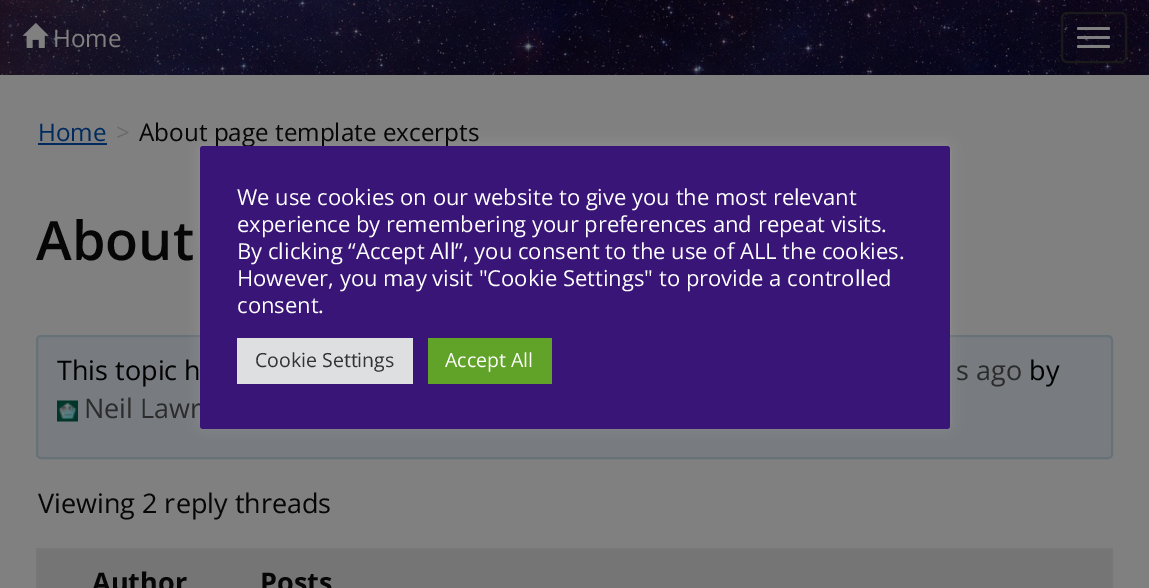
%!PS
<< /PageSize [1149 588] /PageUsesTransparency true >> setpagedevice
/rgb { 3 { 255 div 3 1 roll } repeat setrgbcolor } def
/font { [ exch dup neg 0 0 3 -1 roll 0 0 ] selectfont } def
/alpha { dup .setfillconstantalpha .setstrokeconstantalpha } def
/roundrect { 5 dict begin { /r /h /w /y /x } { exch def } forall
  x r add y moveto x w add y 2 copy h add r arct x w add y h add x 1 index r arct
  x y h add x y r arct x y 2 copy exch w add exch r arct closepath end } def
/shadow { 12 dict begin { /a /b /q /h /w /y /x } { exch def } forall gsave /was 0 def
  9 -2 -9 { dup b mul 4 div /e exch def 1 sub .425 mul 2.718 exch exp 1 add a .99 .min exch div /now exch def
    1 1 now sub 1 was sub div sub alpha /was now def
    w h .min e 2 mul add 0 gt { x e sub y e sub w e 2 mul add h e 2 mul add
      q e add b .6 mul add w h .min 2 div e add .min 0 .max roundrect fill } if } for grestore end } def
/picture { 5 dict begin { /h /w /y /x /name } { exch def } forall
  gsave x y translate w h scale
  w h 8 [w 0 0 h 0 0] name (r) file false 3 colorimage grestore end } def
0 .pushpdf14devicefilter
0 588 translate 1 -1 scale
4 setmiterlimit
255 255 255 rgb
0 0 1149 588 rectfill
(img/1.rgb) 0 0 1149 75 picture
(img/2.rgb) 22 23 27 25 picture
26 26 26 rgb
2 setlinewidth
1062 13 64 49 5 roundrect stroke
128 128 128 rgb
1077 27 33 3 1.5 roundrect fill
1077 36 33 3 1.5 roundrect fill
1077 45 33 3 1.5 roundrect fill
0 75 1149 513 rectfill
0 42 93 rgb
38 143 69 2 rectfill
120 124 128 rgb
37 336 1075 122 4 roundrect gsave fill grestore
103 113 120 rgb
stroke
(img/3.rgb) 57 400 21 22 picture
119 119 119 rgb
37 549 1075 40 rectstroke
117 117 117 rgb
38 551 1073 37 rectfill
119 119 119 rgb
38 550 1074 1 rectfill
172 171 171 rgb
200 144 750 284 3 7.5 0.3 shadow
/OpenSans-Regular 24.25 font
128 128 128 rgb
53 47 moveto (Home) show
0 42 93 rgb
38 141 moveto (Home) show
106 106 106 rgb
116 141 moveto (>) show
6 6 6 rgb
139 141 moveto (About page template excerpts) show
/OpenSans-SemiBold 54 font
36 260 moveto (About) show
/OpenSans-Regular 27 font
0 0 0 rgb
57 380 moveto (This topic h) show
43 43 43 rgb
956 380 moveto (s ago) show
0 0 0 rgb
1029 380 moveto (by) show
43 43 43 rgb
84 418 moveto (Neil Lawr) show
6 6 6 rgb
38 513 moveto (Viewing 2 reply threads) show
/OpenSans-Bold 27 font
92 592 moveto (Author) show
260 592 moveto (Posts) show
57 21 119 rgb
200 146 750 283 3 roundrect fill
/OpenSans-Regular 22 font
255 255 255 rgb
[
  [(We use cookies on our website to give you the most relevant) 237 205]
  [(experience by remembering your preferences and repeat visits.) 237 232]
  [(By clicking “Accept All”, you consent to the use of ALL the cookies.) 237 259]
  [(However, you may visit "Cookie Settings" to provide a controlled) 237 286]
  [(consent.) 237 313]
] { aload pop moveto show } forall
222 223 224 rgb
237 338 176 46 rectfill
/OpenSans-Regular 19.5 font
51 51 51 rgb
255 367 moveto (Cookie Settings) show
97 162 41 rgb
428 338 124 46 rectfill
255 255 255 rgb
445 367 moveto (Accept All) show
.poppdf14devicefilter showpage
